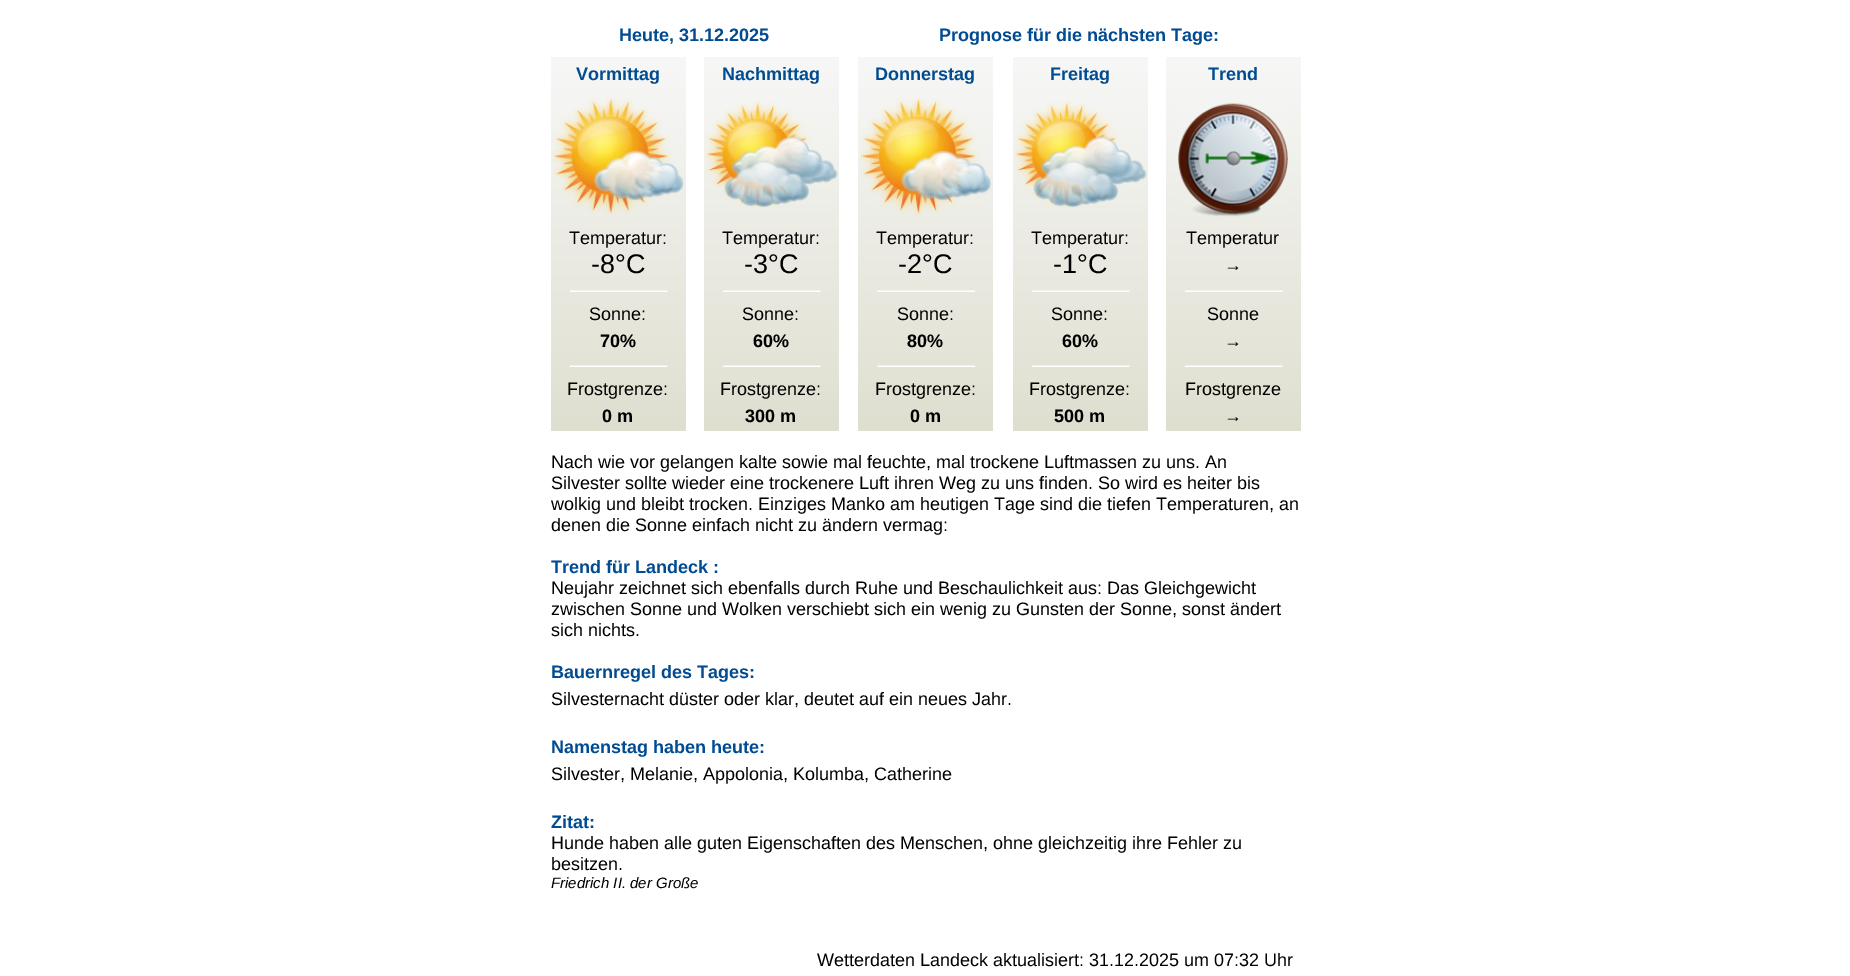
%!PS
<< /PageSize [1850 976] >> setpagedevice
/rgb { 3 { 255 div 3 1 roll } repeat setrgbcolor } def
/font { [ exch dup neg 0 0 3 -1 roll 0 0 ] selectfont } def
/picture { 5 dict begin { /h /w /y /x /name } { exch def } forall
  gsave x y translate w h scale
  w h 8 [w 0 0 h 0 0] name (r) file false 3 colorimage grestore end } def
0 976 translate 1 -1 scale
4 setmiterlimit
255 255 255 rgb
0 0 1850 976 rectfill
gsave 551 57 moveto 686 57 lineto 686 431 lineto 551 431 lineto closepath clip newpath
<< /ShadingType 2 /ColorSpace /DeviceRGB /Coords [618 57 618 431] /Extend [true true] /Function << /FunctionType 2 /Domain [0 1] /C0 [0.969 0.969 0.969] /C1 [0.875 0.875 0.816] /N 1 >> >> shfill grestore
(img/1.rgb) 551 97 133 119 picture
(img/2.rgb) 570 290 98 2 picture
(img/3.rgb) 570 365 98 2 picture
gsave 704 57 moveto 839 57 lineto 839 431 lineto 704 431 lineto closepath clip newpath
<< /ShadingType 2 /ColorSpace /DeviceRGB /Coords [771 57 771 431] /Extend [true true] /Function << /FunctionType 2 /Domain [0 1] /C0 [0.969 0.969 0.969] /C1 [0.875 0.875 0.816] /N 1 >> >> shfill grestore
(img/4.rgb) 704 100 134 108 picture
(img/2.rgb) 723 290 98 2 picture
(img/3.rgb) 723 365 98 2 picture
gsave 858 57 moveto 993 57 lineto 993 431 lineto 858 431 lineto closepath clip newpath
<< /ShadingType 2 /ColorSpace /DeviceRGB /Coords [926 57 926 431] /Extend [true true] /Function << /FunctionType 2 /Domain [0 1] /C0 [0.969 0.969 0.969] /C1 [0.875 0.875 0.816] /N 1 >> >> shfill grestore
(img/5.rgb) 859 97 132 119 picture
(img/6.rgb) 877 290 98 2 picture
(img/7.rgb) 877 365 98 2 picture
gsave 1013 57 moveto 1148 57 lineto 1148 431 lineto 1013 431 lineto closepath clip newpath
<< /ShadingType 2 /ColorSpace /DeviceRGB /Coords [1080 57 1080 431] /Extend [true true] /Function << /FunctionType 2 /Domain [0 1] /C0 [0.969 0.969 0.969] /C1 [0.875 0.875 0.816] /N 1 >> >> shfill grestore
(img/4.rgb) 1013 100 134 108 picture
(img/2.rgb) 1032 290 98 2 picture
(img/3.rgb) 1032 365 98 2 picture
gsave 1166 57 moveto 1301 57 lineto 1301 431 lineto 1166 431 lineto closepath clip newpath
<< /ShadingType 2 /ColorSpace /DeviceRGB /Coords [1233 57 1233 431] /Extend [true true] /Function << /FunctionType 2 /Domain [0 1] /C0 [0.969 0.969 0.969] /C1 [0.875 0.875 0.816] /N 1 >> >> shfill grestore
(img/8.rgb) 1178 103 110 114 picture
(img/2.rgb) 1185 290 98 2 picture
(img/3.rgb) 1185 365 98 2 picture
/LiberationSans-Bold 18 font
0 75 145 rgb
[
  [(Heute, 31.12.2025) 619 41]
  [(Prognose für die nächsten Tage:) 939 41]
  [(Vormittag) 576 80]
] { aload pop moveto show } forall
/LiberationSans-Regular 18 font
0 0 0 rgb
569 244 moveto (Temperatur:) show
/LiberationSans-Regular 27 font
591 273 moveto (-8°C) show
/LiberationSans-Regular 18 font
589 320 moveto (Sonne:) show
/LiberationSans-Bold 18 font
600 347 moveto (70%) show
/LiberationSans-Regular 18 font
567 395 moveto (Frostgrenze:) show
/LiberationSans-Bold 18 font
602 422 moveto (0 m) show
0 75 145 rgb
722 80 moveto (Nachmittag) show
/LiberationSans-Regular 18 font
0 0 0 rgb
722 244 moveto (Temperatur:) show
/LiberationSans-Regular 27 font
744 273 moveto (-3°C) show
/LiberationSans-Regular 18 font
742 320 moveto (Sonne:) show
/LiberationSans-Bold 18 font
753 347 moveto (60%) show
/LiberationSans-Regular 18 font
720 395 moveto (Frostgrenze:) show
/LiberationSans-Bold 18 font
745 422 moveto (300 m) show
0 75 145 rgb
875 80 moveto (Donnerstag) show
/LiberationSans-Regular 18 font
0 0 0 rgb
876 244 moveto (Temperatur:) show
/LiberationSans-Regular 27 font
898 273 moveto (-2°C) show
/LiberationSans-Regular 18 font
897 320 moveto (Sonne:) show
/LiberationSans-Bold 18 font
907 347 moveto (80%) show
/LiberationSans-Regular 18 font
875 395 moveto (Frostgrenze:) show
/LiberationSans-Bold 18 font
910 422 moveto (0 m) show
0 75 145 rgb
1050 80 moveto (Freitag) show
/LiberationSans-Regular 18 font
0 0 0 rgb
1031 244 moveto (Temperatur:) show
/LiberationSans-Regular 27 font
1053 273 moveto (-1°C) show
/LiberationSans-Regular 18 font
1051 320 moveto (Sonne:) show
/LiberationSans-Bold 18 font
1062 347 moveto (60%) show
/LiberationSans-Regular 18 font
1029 395 moveto (Frostgrenze:) show
/LiberationSans-Bold 18 font
1054 422 moveto (500 m) show
0 75 145 rgb
1208 80 moveto (Trend) show
/LiberationSans-Regular 18 font
0 0 0 rgb
1186 244 moveto (Temperatur) show
/LiberationSans-Bold 18 font
1224 271 moveto (→) show
/LiberationSans-Regular 18 font
1207 320 moveto (Sonne) show
/LiberationSans-Bold 18 font
1224 347 moveto (→) show
/LiberationSans-Regular 18 font
1185 395 moveto (Frostgrenze) show
/LiberationSans-Bold 18 font
1224 422 moveto (→) show
/LiberationSans-Regular 18 font
[
  [(Nach wie vor gelangen kalte sowie mal feuchte, mal trockene Luftmassen zu uns. An) 551 468]
  [(Silvester sollte wieder eine trockenere Luft ihren Weg zu uns finden. So wird es heiter bis) 551 489]
  [(wolkig und bleibt trocken. Einziges Manko am heutigen Tage sind die tiefen Temperaturen, an) 551 510]
  [(denen die Sonne einfach nicht zu ändern vermag:) 551 531]
] { aload pop moveto show } forall
/LiberationSans-Bold 18 font
0 75 145 rgb
551 573 moveto (Trend für Landeck :) show
/LiberationSans-Regular 18 font
0 0 0 rgb
[
  [(Neujahr zeichnet sich ebenfalls durch Ruhe und Beschaulichkeit aus: Das Gleichgewicht) 551 594]
  [(zwischen Sonne und Wolken verschiebt sich ein wenig zu Gunsten der Sonne, sonst ändert) 551 615]
  [(sich nichts.) 551 636]
] { aload pop moveto show } forall
/LiberationSans-Bold 18 font
0 75 145 rgb
551 678 moveto (Bauernregel des Tages:) show
/LiberationSans-Regular 18 font
0 0 0 rgb
551 705 moveto (Silvesternacht düster oder klar, deutet auf ein neues Jahr.) show
/LiberationSans-Bold 18 font
0 75 145 rgb
551 753 moveto (Namenstag haben heute:) show
/LiberationSans-Regular 18 font
0 0 0 rgb
551 780 moveto (Silvester, Melanie, Appolonia, Kolumba, Catherine) show
/LiberationSans-Bold 18 font
0 75 145 rgb
551 828 moveto (Zitat:) show
/LiberationSans-Regular 18 font
0 0 0 rgb
551 849 moveto (Hunde haben alle guten Eigenschaften des Menschen, ohne gleichzeitig ihre Fehler zu) show
551 870 moveto (besitzen.) show
/LiberationSans-Italic 15 font
551 888 moveto (Friedrich II. der Große) show
/LiberationSans-Regular 18 font
817 966 moveto (Wetterdaten Landeck aktualisiert: 31.12.2025 um 07:32 Uhr) show
showpage
